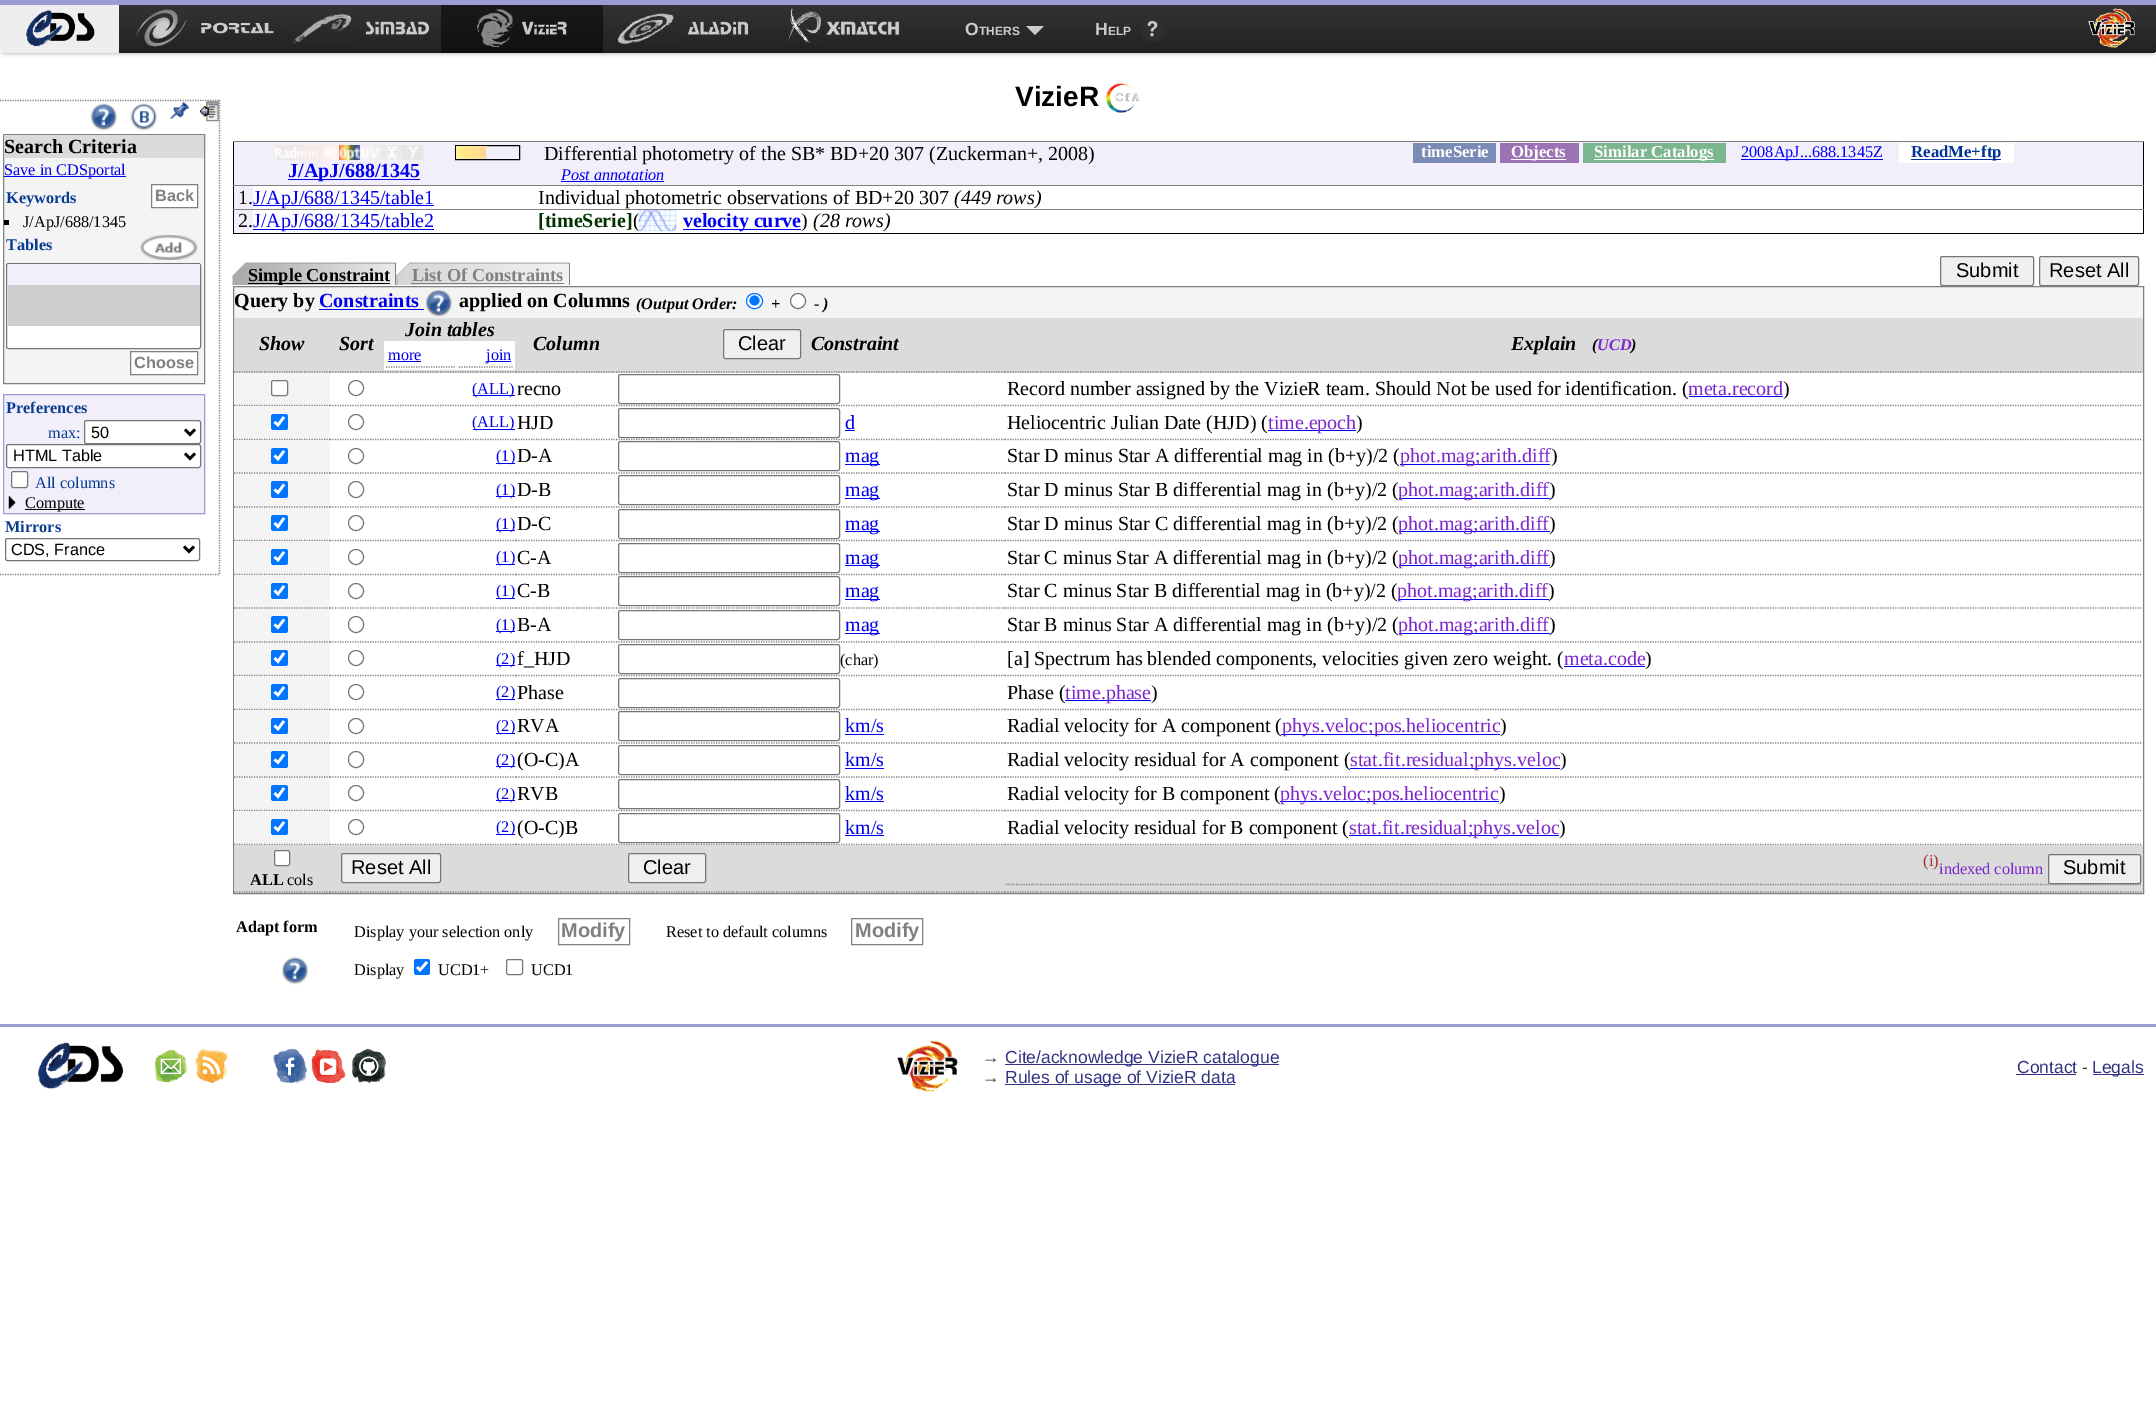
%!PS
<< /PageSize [2156 1416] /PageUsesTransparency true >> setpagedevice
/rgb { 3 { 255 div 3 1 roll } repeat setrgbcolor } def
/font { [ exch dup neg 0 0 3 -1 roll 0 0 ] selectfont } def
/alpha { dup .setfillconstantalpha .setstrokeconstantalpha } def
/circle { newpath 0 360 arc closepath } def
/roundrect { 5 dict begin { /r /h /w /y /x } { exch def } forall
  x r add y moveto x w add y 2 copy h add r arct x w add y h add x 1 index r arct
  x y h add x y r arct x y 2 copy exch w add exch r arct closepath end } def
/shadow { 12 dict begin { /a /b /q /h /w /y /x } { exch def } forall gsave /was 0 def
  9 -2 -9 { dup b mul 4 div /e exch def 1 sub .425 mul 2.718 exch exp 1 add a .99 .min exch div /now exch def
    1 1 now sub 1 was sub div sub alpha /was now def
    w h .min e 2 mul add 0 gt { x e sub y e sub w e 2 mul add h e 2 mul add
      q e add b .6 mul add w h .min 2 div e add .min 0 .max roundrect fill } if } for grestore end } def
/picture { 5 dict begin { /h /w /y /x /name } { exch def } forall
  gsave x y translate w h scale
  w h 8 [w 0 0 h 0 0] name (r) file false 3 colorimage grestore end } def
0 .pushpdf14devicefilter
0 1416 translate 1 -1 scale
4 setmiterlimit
255 255 255 rgb
0 0 2156 1416 rectfill
0 0 0 rgb
0 1 2156 53 5 2 0.25 shadow
gsave 0 5 moveto 2156 5 lineto 2156 48 lineto 2156 51 2154 53 2151 53 curveto 5 53 lineto 2 53 0 51 0 48 curveto closepath clip newpath
<< /ShadingType 2 /ColorSpace /DeviceRGB /Coords [1078 5 1078 53] /Extend [true true] /Function << /FunctionType 2 /Domain [0 1] /C0 [0.2 0.2 0.2] /C1 [0.133 0.133 0.133] /N 1 >> >> shfill grestore
0.1 alpha
0 46 moveto 0 48 lineto 0 51 2 53 5 53 curveto 2151 53 lineto 2154 53 2156 51 2156 48 curveto 2156 46 lineto 2156 49 2154 51 2151 51 curveto 5 51 lineto 2 51 0 49 0 46 curveto closepath fill
1 alpha
156 155 213 rgb
0 0 2156 5 rectfill
238 238 238 rgb
0 5 119 48 rectfill
(img/1.rgb) 26 10 69 37 picture
(img/2.rgb) 136 9 51 38 picture
(img/3.rgb) 201 22 73 12 picture
(img/4.rgb) 293 13 59 31 picture
(img/5.rgb) 365 21 65 14 picture
0.5 alpha
0 0 0 rgb
441 5 162 48 rectfill
1 alpha
(img/6.rgb) 477 9 36 39 picture
(img/7.rgb) 521 21 46 14 picture
(img/8.rgb) 617 13 57 31 picture
(img/9.rgb) 687 21 62 14 picture
(img/10.rgb) 788 8 33 35 picture
(img/11.rgb) 826 21 74 14 picture
204 204 204 rgb
1026 26 moveto 1044 26 lineto 1035 35 lineto closepath fill
(img/12.rgb) 1141 20 23 22 picture
(img/13.rgb) 2088 8 47 40 picture
(img/14.rgb) 1106 83 34 30 picture
128 128 128 rgb
1.2 setlinewidth
[1.25 1.25] 0 setdash
0 100.5 moveto 220 100.5 lineto stroke
219.5 100 moveto 219.5 575 lineto stroke
0 574.5 moveto 220 574.5 lineto stroke
(img/15.rgb) 90 103 27 28 picture
(img/16.rgb) 130 103 27 28 picture
(img/17.rgb) 169 102 20 17 picture
(img/18.rgb) 199 101 20 21 picture
244 244 244 rgb
4 158 200 225 rectfill
128 128 128 rgb
1 setlinewidth
[] 0 setdash
3.5 134.5 201 249 rectstroke
219 219 219 rgb
4 135 200 23 rectfill
0 0 238 rgb
4 176 122 1 rectfill
255 255 255 rgb
151.5 184.5 moveto 197.5 184.5 lineto 197.5 207.5 lineto 151.5 207.5 lineto closepath gsave fill grestore
128 128 128 rgb
stroke
0 0 0 rgb
4 220 5 5 rectfill
(img/19.rgb) 140 235 58 25 picture
255 255 255 rgb
6.5 263.5 194 85 2 roundrect gsave fill grestore
118 118 118 rgb
stroke
242 239 251 rgb
9 264 moveto 199 264 lineto 199.5 264 200 264.5 200 265 curveto 200 285 lineto 8 285 lineto 8 265 lineto 8 264.5 8.5 264 9 264 curveto closepath fill
206 206 206 rgb
8 285 192 41 rectfill
255 255 255 rgb
130.5 351.5 moveto 197.5 351.5 lineto 197.5 374.5 lineto 130.5 374.5 lineto closepath gsave fill grestore
128 128 128 rgb
stroke
242 239 251 rgb
3.5 394.5 moveto 204.5 394.5 lineto 204.5 513.5 lineto 3.5 513.5 lineto closepath gsave fill grestore
156 155 213 rgb
stroke
255 255 255 rgb
84.5 420.5 116 23 2 roundrect gsave fill grestore
118 118 118 rgb
stroke
0 0 0 rgb
2.5 setlinewidth
185 429.5 moveto 190 434.5 lineto 195 429.5 lineto stroke
255 255 255 rgb
6.5 444.5 194 23 2 roundrect gsave fill grestore
118 118 118 rgb
1 setlinewidth
stroke
0 0 0 rgb
2.5 setlinewidth
185 453.5 moveto 190 458.5 lineto 195 453.5 lineto stroke
255 255 255 rgb
11.5 471.5 16 16 2 roundrect gsave fill grestore
118 118 118 rgb
1 setlinewidth
stroke
(img/20.rgb) 8 496 8 13 picture
0 0 0 rgb
25 509 60 1 rectfill
118 118 118 rgb
5.5 538.5 194 22 2 roundrect stroke
0 0 0 rgb
2.5 setlinewidth
184 546.5 moveto 189 551.5 lineto 194 546.5 lineto stroke
[
  [2143 141 1 93 0 0 0]
  [233 233 1911 1 0 0 0]
  [233 141 1 93 0 0 0]
  [538 141 7 44 242 239 251]
  [233 141 1911 1 128 128 128]
  [234 142 304 43 242 239 251]
] { aload pop rgb rectfill } forall
(img/21.rgb) 275 145 149 15 picture
0.9 alpha
[
  [275 145 21 15 255 255 255]
  [296 145 22 15 255 255 255]
  [318 145 21 15 255 255 255]
  [360 145 21 15 255 255 255]
  [381 145 22 15 255 255 255]
  [403 145 21 15 255 255 255]
] { aload pop rgb rectfill } forall
1 alpha
[
  [288 179 132 1 0 0 238]
] { aload pop rgb rectfill } forall
0 0 0 rgb
1 setlinewidth
455.5 145.5 64 14 rectstroke
(img/22.rgb) 456 146 31 13 picture
[
  [545 142 1598 43 242 239 251]
  [1413 143 83 20 122 139 182]
  [1500 143 79 20 156 116 182]
  [1511 159 55 1 255 255 255]
  [1583 143 143 20 124 182 142]
  [1594 159 120 1 255 255 255]
  [1741 159 142 1 0 0 255]
  [1899 143 115 20 255 255 255]
  [1911 159 90 1 0 51 153]
  [561 181 103 1 0 0 238]
  [234 186 19 23 242 239 251]
  [253 205 181 1 0 0 238]
  [233 185 1911 1 128 128 128]
  [234 210 19 23 242 239 251]
  [253 229 181 1 0 0 238]
  [233 209 1911 1 128 128 128]
  [683 229 118 1 0 0 238]
] { aload pop rgb rectfill } forall
(img/24.rgb) 232 262 165 23 picture
(img/25.rgb) 396 262 174 23 picture
[
  [395 263 1 22 128 128 128]
  [248 283 142 1 0 0 0]
  [569 263 1 22 128 128 128]
  [411 283 153 1 128 128 128]
] { aload pop rgb rectfill } forall
239 239 239 rgb
1940.5 256.5 93 29 2 roundrect gsave fill grestore
118 118 118 rgb
stroke
239 239 239 rgb
2039.5 256.5 99 29 2 roundrect gsave fill grestore
118 118 118 rgb
stroke
244 244 244 rgb
234 287 1909 31 rectfill
128 128 128 rgb
233.5 286.5 1910 607 rectstroke
0 0 238 rgb
319 309 105 1 rectfill
(img/26.rgb) 425 290 27 27 picture
255 255 255 rgb
746.5 293.5 16 15 7.5 roundrect gsave fill grestore
0 117 255 rgb
stroke
754.5 300.5 5 circle fill
255 255 255 rgb
798 301 7.5 circle gsave fill grestore
118 118 118 rgb
stroke
219 219 219 rgb
234 318 1909 55 rectfill
128 128 128 rgb
1.2 setlinewidth
[1.25 1.25] 0 setdash
234 372 moveto 330 372 lineto stroke
330 372 moveto 382.5 372 lineto stroke
382.5 372 moveto 516 372 lineto stroke
255 255 255 rgb
384 341 131 29 rectfill
128 128 128 rgb
386 367 moveto 456 367 lineto stroke
0 0 238 rgb
388 361 33 1 rectfill
128 128 128 rgb
459 367 moveto 512.5 367 lineto stroke
0 0 238 rgb
486 361 25 1 rectfill
128 128 128 rgb
516 372 moveto 616 372 lineto stroke
616 372 moveto 1005 372 lineto stroke
239 239 239 rgb
723.5 329.5 77 29 2 roundrect gsave fill grestore
118 118 118 rgb
1 setlinewidth
[] 0 setdash
stroke
128 128 128 rgb
1.2 setlinewidth
[1.25 1.25] 0 setdash
1005 372 moveto 2142.5 372 lineto stroke
244 244 244 rgb
234 373 96 33 rectfill
128 128 128 rgb
234 405.5 moveto 330 405.5 lineto stroke
255 255 255 rgb
271.5 380.5 16 15 2 roundrect gsave fill grestore
118 118 118 rgb
1 setlinewidth
[] 0 setdash
stroke
128 128 128 rgb
1.2 setlinewidth
[1.25 1.25] 0 setdash
330 405.5 moveto 382.5 405.5 lineto stroke
118 118 118 rgb
1 setlinewidth
[] 0 setdash
356 388 7.5 circle stroke
128 128 128 rgb
1.2 setlinewidth
[1.25 1.25] 0 setdash
382.5 405.5 moveto 516 405.5 lineto stroke
0 0 238 rgb
473 395 42 1 rectfill
128 128 128 rgb
516 405.5 moveto 616 405.5 lineto stroke
616 405.5 moveto 1005 405.5 lineto stroke
118 118 118 rgb
1 setlinewidth
[] 0 setdash
618.5 374.5 221 29 2 roundrect stroke
128 128 128 rgb
1.2 setlinewidth
[1.25 1.25] 0 setdash
1005 405.5 moveto 2142.5 405.5 lineto stroke
0 0 238 rgb
1689 396 94 1 rectfill
244 244 244 rgb
234 406 96 34 rectfill
128 128 128 rgb
234 439.5 moveto 330 439.5 lineto stroke
0 117 255 rgb
271 414 17 16 2.5 roundrect fill
255 255 255 rgb
2.6 setlinewidth
[] 0 setdash
274.5 422 moveto 278 425 lineto 284 417 lineto stroke
128 128 128 rgb
1.2 setlinewidth
[1.25 1.25] 0 setdash
330 439.5 moveto 382.5 439.5 lineto stroke
118 118 118 rgb
1 setlinewidth
[] 0 setdash
356 422 7.5 circle stroke
128 128 128 rgb
1.2 setlinewidth
[1.25 1.25] 0 setdash
382.5 439.5 moveto 516 439.5 lineto stroke
0 0 238 rgb
473 429 42 1 rectfill
128 128 128 rgb
516 439.5 moveto 616 439.5 lineto stroke
616 439.5 moveto 1005 439.5 lineto stroke
118 118 118 rgb
1 setlinewidth
[] 0 setdash
618.5 408.5 221 29 2 roundrect stroke
0 0 238 rgb
845 430 10 1 rectfill
128 128 128 rgb
1.2 setlinewidth
[1.25 1.25] 0 setdash
1005 439.5 moveto 2142.5 439.5 lineto stroke
0 0 238 rgb
1268 430 88 1 rectfill
244 244 244 rgb
234 440 96 101 rectfill
128 128 128 rgb
234 473 moveto 330 473 lineto stroke
0 117 255 rgb
271 448 17 16 2.5 roundrect fill
255 255 255 rgb
2.6 setlinewidth
[] 0 setdash
274.5 455.5 moveto 278 459 lineto 284 451 lineto stroke
128 128 128 rgb
1.2 setlinewidth
[1.25 1.25] 0 setdash
330 473 moveto 382.5 473 lineto stroke
118 118 118 rgb
1 setlinewidth
[] 0 setdash
356 456 7.5 circle stroke
128 128 128 rgb
1.2 setlinewidth
[1.25 1.25] 0 setdash
382.5 473 moveto 516 473 lineto stroke
0 0 238 rgb
496 463 19 1 rectfill
128 128 128 rgb
516 473 moveto 616 473 lineto stroke
616 473 moveto 1005 473 lineto stroke
118 118 118 rgb
1 setlinewidth
[] 0 setdash
618.5 441.5 221 29 2 roundrect stroke
0 0 238 rgb
845 464 35 1 rectfill
128 128 128 rgb
1.2 setlinewidth
[1.25 1.25] 0 setdash
1005 473 moveto 2142.5 473 lineto stroke
0 0 238 rgb
1400 464 150 1 rectfill
128 128 128 rgb
234 507 moveto 330 507 lineto stroke
0 117 255 rgb
271 481 17 17 2.5 roundrect fill
255 255 255 rgb
2.6 setlinewidth
[] 0 setdash
274.5 489.5 moveto 278 492.5 lineto 284 484.5 lineto stroke
128 128 128 rgb
1.2 setlinewidth
[1.25 1.25] 0 setdash
330 507 moveto 382.5 507 lineto stroke
118 118 118 rgb
1 setlinewidth
[] 0 setdash
348.5 481.5 15 16 7.5 roundrect stroke
128 128 128 rgb
1.2 setlinewidth
[1.25 1.25] 0 setdash
382.5 507 moveto 516 507 lineto stroke
0 0 238 rgb
496 496 19 1 rectfill
128 128 128 rgb
516 507 moveto 616 507 lineto stroke
616 507 moveto 1005 507 lineto stroke
118 118 118 rgb
1 setlinewidth
[] 0 setdash
618.5 475.5 221 29 2 roundrect stroke
0 0 238 rgb
845 498 35 1 rectfill
128 128 128 rgb
1.2 setlinewidth
[1.25 1.25] 0 setdash
1005 507 moveto 2142.5 507 lineto stroke
0 0 238 rgb
1399 498 151 1 rectfill
128 128 128 rgb
234 540.5 moveto 330 540.5 lineto stroke
0 117 255 rgb
271 515 17 16 2.5 roundrect fill
255 255 255 rgb
2.6 setlinewidth
[] 0 setdash
274.5 523 moveto 278 526.5 lineto 284 518 lineto stroke
128 128 128 rgb
1.2 setlinewidth
[1.25 1.25] 0 setdash
330 540.5 moveto 382.5 540.5 lineto stroke
118 118 118 rgb
1 setlinewidth
[] 0 setdash
356 523 7.5 circle stroke
128 128 128 rgb
1.2 setlinewidth
[1.25 1.25] 0 setdash
382.5 540.5 moveto 516 540.5 lineto stroke
0 0 238 rgb
496 530 19 1 rectfill
128 128 128 rgb
516 540.5 moveto 616 540.5 lineto stroke
616 540.5 moveto 1005 540.5 lineto stroke
118 118 118 rgb
1 setlinewidth
[] 0 setdash
618.5 509.5 221 29 2 roundrect stroke
0 0 238 rgb
845 531 35 1 rectfill
128 128 128 rgb
1.2 setlinewidth
[1.25 1.25] 0 setdash
1005 540.5 moveto 2142.5 540.5 lineto stroke
0 0 238 rgb
1399 531 151 1 rectfill
244 244 244 rgb
234 541 96 34 rectfill
128 128 128 rgb
234 574.5 moveto 330 574.5 lineto stroke
0 117 255 rgb
271 549 17 16 2.5 roundrect fill
255 255 255 rgb
2.6 setlinewidth
[] 0 setdash
274.5 557 moveto 278 560 lineto 284 552 lineto stroke
128 128 128 rgb
1.2 setlinewidth
[1.25 1.25] 0 setdash
330 574.5 moveto 382.5 574.5 lineto stroke
118 118 118 rgb
1 setlinewidth
[] 0 setdash
356 557 7.5 circle stroke
128 128 128 rgb
1.2 setlinewidth
[1.25 1.25] 0 setdash
382.5 574.5 moveto 516 574.5 lineto stroke
0 0 238 rgb
496 564 19 1 rectfill
128 128 128 rgb
516 574.5 moveto 616 574.5 lineto stroke
616 574.5 moveto 1005 574.5 lineto stroke
118 118 118 rgb
1 setlinewidth
[] 0 setdash
618.5 543.5 221 29 2 roundrect stroke
0 0 238 rgb
845 565 35 1 rectfill
128 128 128 rgb
1.2 setlinewidth
[1.25 1.25] 0 setdash
1005 574.5 moveto 2142.5 574.5 lineto stroke
0 0 238 rgb
1399 565 151 1 rectfill
244 244 244 rgb
234 575 96 101 rectfill
128 128 128 rgb
234 608 moveto 330 608 lineto stroke
0 117 255 rgb
271 583 17 16 2.5 roundrect fill
255 255 255 rgb
2.6 setlinewidth
[] 0 setdash
274.5 590.5 moveto 278 594 lineto 284 586 lineto stroke
128 128 128 rgb
1.2 setlinewidth
[1.25 1.25] 0 setdash
330 608 moveto 382.5 608 lineto stroke
118 118 118 rgb
1 setlinewidth
[] 0 setdash
356 591 7.5 circle stroke
128 128 128 rgb
1.2 setlinewidth
[1.25 1.25] 0 setdash
382.5 608 moveto 516 608 lineto stroke
0 0 238 rgb
496 598 19 1 rectfill
128 128 128 rgb
516 608 moveto 616 608 lineto stroke
616 608 moveto 1005 608 lineto stroke
118 118 118 rgb
1 setlinewidth
[] 0 setdash
618.5 576.5 221 29 2 roundrect stroke
0 0 238 rgb
845 599 35 1 rectfill
128 128 128 rgb
1.2 setlinewidth
[1.25 1.25] 0 setdash
1005 608 moveto 2142.5 608 lineto stroke
0 0 238 rgb
1398 599 151 1 rectfill
128 128 128 rgb
234 642 moveto 330 642 lineto stroke
0 117 255 rgb
271 616 17 17 2.5 roundrect fill
255 255 255 rgb
2.6 setlinewidth
[] 0 setdash
274.5 624.5 moveto 278 627.5 lineto 284 619.5 lineto stroke
128 128 128 rgb
1.2 setlinewidth
[1.25 1.25] 0 setdash
330 642 moveto 382.5 642 lineto stroke
118 118 118 rgb
1 setlinewidth
[] 0 setdash
348.5 616.5 15 16 7.5 roundrect stroke
128 128 128 rgb
1.2 setlinewidth
[1.25 1.25] 0 setdash
382.5 642 moveto 516 642 lineto stroke
0 0 238 rgb
496 631 19 1 rectfill
128 128 128 rgb
516 642 moveto 616 642 lineto stroke
616 642 moveto 1005 642 lineto stroke
118 118 118 rgb
1 setlinewidth
[] 0 setdash
618.5 610.5 221 29 2 roundrect stroke
0 0 238 rgb
845 633 35 1 rectfill
128 128 128 rgb
1.2 setlinewidth
[1.25 1.25] 0 setdash
1005 642 moveto 2142.5 642 lineto stroke
0 0 238 rgb
1399 633 151 1 rectfill
128 128 128 rgb
234 675.5 moveto 330 675.5 lineto stroke
0 117 255 rgb
271 650 17 16 2.5 roundrect fill
255 255 255 rgb
2.6 setlinewidth
[] 0 setdash
274.5 658 moveto 278 661.5 lineto 284 653 lineto stroke
128 128 128 rgb
1.2 setlinewidth
[1.25 1.25] 0 setdash
330 675.5 moveto 382.5 675.5 lineto stroke
118 118 118 rgb
1 setlinewidth
[] 0 setdash
356 658 7.5 circle stroke
128 128 128 rgb
1.2 setlinewidth
[1.25 1.25] 0 setdash
382.5 675.5 moveto 516 675.5 lineto stroke
0 0 238 rgb
496 665 19 1 rectfill
128 128 128 rgb
516 675.5 moveto 616 675.5 lineto stroke
616 675.5 moveto 1005 675.5 lineto stroke
118 118 118 rgb
1 setlinewidth
[] 0 setdash
618.5 644.5 221 29 2 roundrect stroke
128 128 128 rgb
1.2 setlinewidth
[1.25 1.25] 0 setdash
1005 675.5 moveto 2142.5 675.5 lineto stroke
0 0 238 rgb
1564 666 81 1 rectfill
244 244 244 rgb
234 676 96 34 rectfill
128 128 128 rgb
234 709.5 moveto 330 709.5 lineto stroke
0 117 255 rgb
271 684 17 16 2.5 roundrect fill
255 255 255 rgb
2.6 setlinewidth
[] 0 setdash
274.5 692 moveto 278 695 lineto 284 687 lineto stroke
128 128 128 rgb
1.2 setlinewidth
[1.25 1.25] 0 setdash
330 709.5 moveto 382.5 709.5 lineto stroke
118 118 118 rgb
1 setlinewidth
[] 0 setdash
356 692 7.5 circle stroke
128 128 128 rgb
1.2 setlinewidth
[1.25 1.25] 0 setdash
382.5 709.5 moveto 516 709.5 lineto stroke
0 0 238 rgb
496 699 19 1 rectfill
128 128 128 rgb
516 709.5 moveto 616 709.5 lineto stroke
616 709.5 moveto 1005 709.5 lineto stroke
118 118 118 rgb
1 setlinewidth
[] 0 setdash
618.5 678.5 221 29 2 roundrect stroke
128 128 128 rgb
1.2 setlinewidth
[1.25 1.25] 0 setdash
1005 709.5 moveto 2142.5 709.5 lineto stroke
0 0 238 rgb
1065 700 86 1 rectfill
244 244 244 rgb
234 710 96 101 rectfill
128 128 128 rgb
234 743 moveto 330 743 lineto stroke
0 117 255 rgb
271 718 17 16 2.5 roundrect fill
255 255 255 rgb
2.6 setlinewidth
[] 0 setdash
274.5 725.5 moveto 278 729 lineto 284 721 lineto stroke
128 128 128 rgb
1.2 setlinewidth
[1.25 1.25] 0 setdash
330 743 moveto 382.5 743 lineto stroke
118 118 118 rgb
1 setlinewidth
[] 0 setdash
356 726 7.5 circle stroke
128 128 128 rgb
1.2 setlinewidth
[1.25 1.25] 0 setdash
382.5 743 moveto 516 743 lineto stroke
0 0 238 rgb
496 733 19 1 rectfill
128 128 128 rgb
516 743 moveto 616 743 lineto stroke
616 743 moveto 1005 743 lineto stroke
118 118 118 rgb
1 setlinewidth
[] 0 setdash
618.5 711.5 221 29 2 roundrect stroke
0 0 238 rgb
845 734 39 1 rectfill
128 128 128 rgb
1.2 setlinewidth
[1.25 1.25] 0 setdash
1005 743 moveto 2142.5 743 lineto stroke
0 0 238 rgb
1281 734 219 1 rectfill
128 128 128 rgb
234 777 moveto 330 777 lineto stroke
0 117 255 rgb
271 751 17 17 2.5 roundrect fill
255 255 255 rgb
2.6 setlinewidth
[] 0 setdash
274.5 759.5 moveto 278 762.5 lineto 284 754.5 lineto stroke
128 128 128 rgb
1.2 setlinewidth
[1.25 1.25] 0 setdash
330 777 moveto 382.5 777 lineto stroke
118 118 118 rgb
1 setlinewidth
[] 0 setdash
348.5 751.5 15 16 7.5 roundrect stroke
128 128 128 rgb
1.2 setlinewidth
[1.25 1.25] 0 setdash
382.5 777 moveto 516 777 lineto stroke
0 0 238 rgb
496 766 19 1 rectfill
128 128 128 rgb
516 777 moveto 616 777 lineto stroke
616 777 moveto 1005 777 lineto stroke
118 118 118 rgb
1 setlinewidth
[] 0 setdash
618.5 745.5 221 29 2 roundrect stroke
0 0 238 rgb
845 768 39 1 rectfill
128 128 128 rgb
1.2 setlinewidth
[1.25 1.25] 0 setdash
1005 777 moveto 2142.5 777 lineto stroke
0 0 238 rgb
1350 768 210 1 rectfill
128 128 128 rgb
234 810.5 moveto 330 810.5 lineto stroke
0 117 255 rgb
271 785 17 16 2.5 roundrect fill
255 255 255 rgb
2.6 setlinewidth
[] 0 setdash
274.5 793 moveto 278 796.5 lineto 284 788 lineto stroke
128 128 128 rgb
1.2 setlinewidth
[1.25 1.25] 0 setdash
330 810.5 moveto 382.5 810.5 lineto stroke
118 118 118 rgb
1 setlinewidth
[] 0 setdash
356 793 7.5 circle stroke
128 128 128 rgb
1.2 setlinewidth
[1.25 1.25] 0 setdash
382.5 810.5 moveto 516 810.5 lineto stroke
0 0 238 rgb
496 800 19 1 rectfill
128 128 128 rgb
516 810.5 moveto 616 810.5 lineto stroke
616 810.5 moveto 1005 810.5 lineto stroke
118 118 118 rgb
1 setlinewidth
[] 0 setdash
618.5 779.5 221 29 2 roundrect stroke
0 0 238 rgb
845 801 39 1 rectfill
128 128 128 rgb
1.2 setlinewidth
[1.25 1.25] 0 setdash
1005 810.5 moveto 2142.5 810.5 lineto stroke
0 0 238 rgb
1280 801 219 1 rectfill
244 244 244 rgb
234 811 96 34 rectfill
128 128 128 rgb
234 844.5 moveto 330 844.5 lineto stroke
0 117 255 rgb
271 819 17 16 2.5 roundrect fill
255 255 255 rgb
2.6 setlinewidth
[] 0 setdash
274.5 827 moveto 278 830 lineto 284 822 lineto stroke
128 128 128 rgb
1.2 setlinewidth
[1.25 1.25] 0 setdash
330 844.5 moveto 382.5 844.5 lineto stroke
118 118 118 rgb
1 setlinewidth
[] 0 setdash
356 827 7.5 circle stroke
128 128 128 rgb
1.2 setlinewidth
[1.25 1.25] 0 setdash
382.5 844.5 moveto 516 844.5 lineto stroke
0 0 238 rgb
496 834 19 1 rectfill
128 128 128 rgb
516 844.5 moveto 616 844.5 lineto stroke
616 844.5 moveto 1005 844.5 lineto stroke
118 118 118 rgb
1 setlinewidth
[] 0 setdash
618.5 813.5 221 29 2 roundrect stroke
0 0 238 rgb
845 835 39 1 rectfill
128 128 128 rgb
1.2 setlinewidth
[1.25 1.25] 0 setdash
1005 844.5 moveto 2142.5 844.5 lineto stroke
0 0 238 rgb
1349 835 210 1 rectfill
219 219 219 rgb
234 845 1909 48 rectfill
128 128 128 rgb
330 892 moveto 616 892 lineto stroke
239 239 239 rgb
341.5 853.5 99 29 2 roundrect gsave fill grestore
118 118 118 rgb
1 setlinewidth
[] 0 setdash
stroke
128 128 128 rgb
1.2 setlinewidth
[1.25 1.25] 0 setdash
616 892 moveto 1005 892 lineto stroke
239 239 239 rgb
628.5 853.5 77 29 2 roundrect gsave fill grestore
118 118 118 rgb
1 setlinewidth
[] 0 setdash
stroke
128 128 128 rgb
1.2 setlinewidth
[1.25 1.25] 0 setdash
1005 892 moveto 2142.5 892 lineto stroke
1006 884.5 moveto 1032.5 884.5 lineto stroke
1032.5 884.5 moveto 2141 884.5 lineto stroke
239 239 239 rgb
2048.5 854.5 92 29 2 roundrect gsave fill grestore
118 118 118 rgb
1 setlinewidth
[] 0 setdash
stroke
128 128 128 rgb
1.2 setlinewidth
[1.25 1.25] 0 setdash
234 892 moveto 330 892 lineto stroke
255 255 255 rgb
274.5 850.5 15 15 2 roundrect gsave fill grestore
118 118 118 rgb
1 setlinewidth
[] 0 setdash
stroke
128 128 128 rgb
558.5 918.5 71 26 rectstroke
851.5 918.5 71 26 rectstroke
(img/27.rgb) 282 957 26 28 picture
0 117 255 rgb
414 959 16 16 2.5 roundrect fill
255 255 255 rgb
2.6 setlinewidth
417 967 moveto 420 970 lineto 427 962 lineto stroke
118 118 118 rgb
1 setlinewidth
506.5 959.5 16 15 2 roundrect stroke
156 155 213 rgb
0 1024 2156 3 rectfill
(img/28.rgb) 38 1042 85 47 picture
(img/29.rgb) 155 1050 33 33 picture
(img/30.rgb) 194 1049 34 34 picture
(img/31.rgb) 273 1048 35 36 picture
(img/32.rgb) 311 1049 35 34 picture
(img/33.rgb) 352 1048 34 35 picture
(img/34.rgb) 897 1040 61 52 picture
[
  [1005 1064 274 1 51 49 129]
  [1005 1084 230 1 51 49 129]
  [2016 1074 60 1 51 49 129]
  [2093 1074 51 1 51 49 129]
] { aload pop rgb rectfill } forall
/LiberationSans-Bold 17.5 font
204 204 204 rgb
965 35 moveto (O) show
/LiberationSans-Bold 12 font
979 35 moveto (THERS) show
/LiberationSans-Bold 17.5 font
1095 35 moveto (H) show
/LiberationSans-Bold 12 font
1108 35 moveto (ELP) show
/LiberationSans-Bold 28 font
0 0 0 rgb
1015 106 moveto (VizieR) show
/LiberationSerif-Bold 20 font
4 153 moveto (Search Criteria) show
/LiberationSerif-Regular 16.25 font
0 0 238 rgb
4 175 moveto (Save in CDSportal) show
/LiberationSerif-Bold 16.25 font
8 60 145 rgb
6 203 moveto (Keywords) show
/LiberationSans-Bold 16.25 font
128 128 128 rgb
155 201 moveto (Back) show
/LiberationSerif-Regular 16.25 font
0 0 0 rgb
23 227 moveto (J/ApJ/688/1345) show
/LiberationSerif-Bold 16.25 font
8 60 145 rgb
6 250 moveto (Tables) show
/LiberationSans-Bold 16.25 font
128 128 128 rgb
134 368 moveto (Choose) show
/LiberationSerif-Bold 16.25 font
8 60 145 rgb
6 413 moveto (Preferences) show
/LiberationSerif-Regular 16.25 font
48 438 moveto (max:) show
/LiberationSans-Regular 16.25 font
0 0 0 rgb
91 438 moveto (50) show
13 461 moveto (HTML Table) show
/LiberationSerif-Regular 16.25 font
8 60 145 rgb
35 488 moveto (All columns) show
0 0 0 rgb
25 508 moveto (Compute) show
/LiberationSerif-Bold 16.25 font
8 60 145 rgb
5 532 moveto (Mirrors) show
/LiberationSans-Regular 16.25 font
0 0 0 rgb
11 555 moveto (CDS, France) show
/LiberationSerif-Bold 20 font
0 0 238 rgb
288 177 moveto (J/ApJ/688/1345) show
/LiberationSerif-Regular 20 font
0 0 0 rgb
544 160 moveto (Differential photometry of the SB* BD+20 307 \(Zuckerman+, 2008\)) show
/LiberationSerif-Bold 16.75 font
255 255 255 rgb
[
  [(timeSerie) 1421 157]
  [(Objects) 1511 157]
  [(Similar Catalogs) 1594 157]
] { aload pop moveto show } forall
/LiberationSerif-Regular 16.25 font
0 0 255 rgb
1741 157 moveto (2008ApJ...688.1345Z) show
/LiberationSerif-Bold 16.75 font
0 51 153 rgb
1911 157 moveto (ReadMe+ftp) show
/LiberationSerif-Italic 16.25 font
0 0 238 rgb
561 180 moveto (Post annotation) show
/LiberationSerif-Regular 20 font
0 0 0 rgb
238 204 moveto (1.) show
0 0 238 rgb
253 204 moveto (J/ApJ/688/1345/table1) show
0 0 0 rgb
538 204 moveto (Individual photometric observations of BD+20 307) show
/LiberationSerif-Italic 20 font
954 204 moveto (\(449 rows\)) show
/LiberationSerif-Regular 20 font
238 227 moveto (2.) show
0 0 238 rgb
253 227 moveto (J/ApJ/688/1345/table2) show
/LiberationSerif-Bold 20 font
0 51 0 rgb
538 227 moveto ([timeSerie]) show
/LiberationSerif-Regular 20 font
0 0 0 rgb
633 227 moveto (\() show
(img/23.rgb) 638 210 39 22 picture
/LiberationSerif-Bold 20 font
0 0 238 rgb
683 227 moveto (velocity curve) show
/LiberationSerif-Regular 20 font
0 0 0 rgb
801 227 moveto (\)) show
/LiberationSerif-Italic 20 font
813 227 moveto (\(28 rows\)) show
/LiberationSerif-Bold 18.25 font
248 281 moveto (Simple Constraint) show
128 128 128 rgb
412 281 moveto (List Of Constraints) show
/LiberationSans-Regular 20 font
0 0 0 rgb
1956 277 moveto (Submit) show
2049 277 moveto (Reset All) show
/LiberationSerif-Bold 20 font
234 307 moveto (Query by) show
0 0 238 rgb
319 307 moveto (Constraints) show
0 0 0 rgb
459 307 moveto (applied on Columns) show
/LiberationSerif-BoldItalic 16.25 font
[
  [(\(Output Order:) 636 309]
  [(+) 771 309]
  [(- \)) 814 309]
] { aload pop moveto show } forall
/LiberationSerif-BoldItalic 20 font
[
  [(Show) 259 350]
  [(Sort) 339 350]
  [(Join tables) 405 336]
] { aload pop moveto show } forall
/LiberationSerif-Regular 16.25 font
0 0 238 rgb
388 360 moveto (more) show
486 360 moveto (join) show
/LiberationSerif-BoldItalic 20 font
0 0 0 rgb
533 350 moveto (Column) show
/LiberationSans-Regular 20 font
738 350 moveto (Clear) show
/LiberationSerif-BoldItalic 20 font
811 350 moveto (Constraint) show
1511 350 moveto (Explain) show
/LiberationSerif-BoldItalic 16.25 font
1592 350 moveto (\() show
125 38 205 rgb
1597 350 moveto (UCD) show
0 0 0 rgb
1631 350 moveto (\)) show
/LiberationSerif-Regular 16.25 font
0 0 238 rgb
472 394 moveto (\(ALL\)) show
/LiberationSerif-Regular 20 font
0 0 0 rgb
517 395 moveto (recno) show
1007 395 moveto (Record number assigned by the VizieR team. Should Not be used for identification. \() show
125 38 205 rgb
1688 395 moveto (meta.record) show
0 0 0 rgb
1783 395 moveto (\)) show
/LiberationSerif-Regular 16.25 font
0 0 238 rgb
472 427 moveto (\(ALL\)) show
/LiberationSerif-Regular 20 font
0 0 0 rgb
517 429 moveto (HJD) show
0 0 238 rgb
845 429 moveto (d) show
0 0 0 rgb
1007 429 moveto (Heliocentric Julian Date \(HJD\) \() show
125 38 205 rgb
1268 429 moveto (time.epoch) show
0 0 0 rgb
1356 429 moveto (\)) show
/LiberationSerif-Regular 16.25 font
0 0 238 rgb
496 461 moveto (\(1\)) show
/LiberationSerif-Regular 20 font
0 0 0 rgb
517 462 moveto (D-A) show
0 0 238 rgb
845 462 moveto (mag) show
0 0 0 rgb
1007 462 moveto (Star D minus Star A differential mag in \(b+y\)/2 \() show
125 38 205 rgb
1400 462 moveto (phot.mag;arith.diff) show
0 0 0 rgb
1551 462 moveto (\)) show
/LiberationSerif-Regular 16.25 font
0 0 238 rgb
496 495 moveto (\(1\)) show
/LiberationSerif-Regular 20 font
0 0 0 rgb
517 496 moveto (D-B) show
0 0 238 rgb
845 496 moveto (mag) show
0 0 0 rgb
1007 496 moveto (Star D minus Star B differential mag in \(b+y\)/2 \() show
125 38 205 rgb
1398 496 moveto (phot.mag;arith.diff) show
0 0 0 rgb
1549 496 moveto (\)) show
/LiberationSerif-Regular 16.25 font
0 0 238 rgb
496 529 moveto (\(1\)) show
/LiberationSerif-Regular 20 font
0 0 0 rgb
517 530 moveto (D-C) show
0 0 238 rgb
845 530 moveto (mag) show
0 0 0 rgb
1007 530 moveto (Star D minus Star C differential mag in \(b+y\)/2 \() show
125 38 205 rgb
1398 530 moveto (phot.mag;arith.diff) show
0 0 0 rgb
1549 530 moveto (\)) show
/LiberationSerif-Regular 16.25 font
0 0 238 rgb
496 562 moveto (\(1\)) show
/LiberationSerif-Regular 20 font
0 0 0 rgb
517 564 moveto (C-A) show
0 0 238 rgb
845 564 moveto (mag) show
0 0 0 rgb
1007 564 moveto (Star C minus Star A differential mag in \(b+y\)/2 \() show
125 38 205 rgb
1398 564 moveto (phot.mag;arith.diff) show
0 0 0 rgb
1549 564 moveto (\)) show
/LiberationSerif-Regular 16.25 font
0 0 238 rgb
496 596 moveto (\(1\)) show
/LiberationSerif-Regular 20 font
0 0 0 rgb
517 597 moveto (C-B) show
0 0 238 rgb
845 597 moveto (mag) show
0 0 0 rgb
1007 597 moveto (Star C minus Star B differential mag in \(b+y\)/2 \() show
125 38 205 rgb
1397 597 moveto (phot.mag;arith.diff) show
0 0 0 rgb
1548 597 moveto (\)) show
/LiberationSerif-Regular 16.25 font
0 0 238 rgb
496 630 moveto (\(1\)) show
/LiberationSerif-Regular 20 font
0 0 0 rgb
517 631 moveto (B-A) show
0 0 238 rgb
845 631 moveto (mag) show
0 0 0 rgb
1007 631 moveto (Star B minus Star A differential mag in \(b+y\)/2 \() show
125 38 205 rgb
1398 631 moveto (phot.mag;arith.diff) show
0 0 0 rgb
1549 631 moveto (\)) show
/LiberationSerif-Regular 16.25 font
0 0 238 rgb
496 664 moveto (\(2\)) show
/LiberationSerif-Regular 20 font
0 0 0 rgb
517 665 moveto (f_HJD) show
/LiberationSerif-Regular 16.25 font
840 665 moveto (\(char\)) show
/LiberationSerif-Regular 20 font
1007 665 moveto ([a] Spectrum has blended components, velocities given zero weight. \() show
125 38 205 rgb
1564 665 moveto (meta.code) show
0 0 0 rgb
1645 665 moveto (\)) show
/LiberationSerif-Regular 16.25 font
0 0 238 rgb
496 697 moveto (\(2\)) show
/LiberationSerif-Regular 20 font
0 0 0 rgb
517 699 moveto (Phase) show
1007 699 moveto (Phase \() show
125 38 205 rgb
1065 699 moveto (time.phase) show
0 0 0 rgb
1151 699 moveto (\)) show
/LiberationSerif-Regular 16.25 font
0 0 238 rgb
496 731 moveto (\(2\)) show
/LiberationSerif-Regular 20 font
0 0 0 rgb
517 732 moveto (RVA) show
0 0 238 rgb
845 732 moveto (km/s) show
0 0 0 rgb
1007 732 moveto (Radial velocity for A component \() show
125 38 205 rgb
1282 732 moveto (phys.veloc;pos.heliocentric) show
0 0 0 rgb
1500 732 moveto (\)) show
/LiberationSerif-Regular 16.25 font
0 0 238 rgb
496 765 moveto (\(2\)) show
/LiberationSerif-Regular 20 font
0 0 0 rgb
517 766 moveto (\(O-C\)A) show
0 0 238 rgb
845 766 moveto (km/s) show
0 0 0 rgb
1007 766 moveto (Radial velocity residual for A component \() show
125 38 205 rgb
1350 766 moveto (stat.fit.residual;phys.veloc) show
0 0 0 rgb
1560 766 moveto (\)) show
/LiberationSerif-Regular 16.25 font
0 0 238 rgb
496 799 moveto (\(2\)) show
/LiberationSerif-Regular 20 font
0 0 0 rgb
517 800 moveto (RVB) show
0 0 238 rgb
845 800 moveto (km/s) show
0 0 0 rgb
1007 800 moveto (Radial velocity for B component \() show
125 38 205 rgb
1280 800 moveto (phys.veloc;pos.heliocentric) show
0 0 0 rgb
1499 800 moveto (\)) show
/LiberationSerif-Regular 16.25 font
0 0 238 rgb
496 832 moveto (\(2\)) show
/LiberationSerif-Regular 20 font
0 0 0 rgb
517 834 moveto (\(O-C\)B) show
0 0 238 rgb
845 834 moveto (km/s) show
0 0 0 rgb
1007 834 moveto (Radial velocity residual for B component \() show
125 38 205 rgb
1349 834 moveto (stat.fit.residual;phys.veloc) show
0 0 0 rgb
1559 834 moveto (\)) show
/LiberationSans-Regular 20 font
351 874 moveto (Reset All) show
643 874 moveto (Clear) show
/LiberationSerif-Regular 16.75 font
165 42 42 rgb
1923 866 moveto (\(i\)) show
/LiberationSerif-Regular 16.25 font
125 38 205 rgb
1939 874 moveto (indexed column) show
/LiberationSans-Regular 20 font
0 0 0 rgb
2063 874 moveto (Submit) show
/LiberationSerif-Bold 16.25 font
250 885 moveto (ALL) show
/LiberationSerif-Regular 16.25 font
287 885 moveto (cols) show
/LiberationSerif-Bold 16.25 font
236 932 moveto (Adapt form) show
/LiberationSerif-Regular 16.25 font
354 937 moveto (Display your selection only) show
/LiberationSans-Bold 20 font
128 128 128 rgb
561 937 moveto (Modify) show
/LiberationSerif-Regular 16.25 font
0 0 0 rgb
666 937 moveto (Reset to default columns) show
/LiberationSans-Bold 20 font
128 128 128 rgb
855 937 moveto (Modify) show
/LiberationSerif-Regular 16.25 font
0 0 0 rgb
[
  [(Display) 354 975]
  [(UCD1+) 438 975]
  [(UCD1) 531 975]
] { aload pop moveto show } forall
/LiberationSans-Regular 17.5 font
51 51 51 rgb
982 1063 moveto (→) show
51 49 129 rgb
1005 1063 moveto (Cite/acknowledge VizieR catalogue) show
51 51 51 rgb
982 1083 moveto (→) show
51 49 129 rgb
1005 1083 moveto (Rules of usage of VizieR data) show
2017 1073 moveto (Contact) show
51 51 51 rgb
2082 1073 moveto (-) show
51 49 129 rgb
2092 1073 moveto (Legals) show
.poppdf14devicefilter showpage
